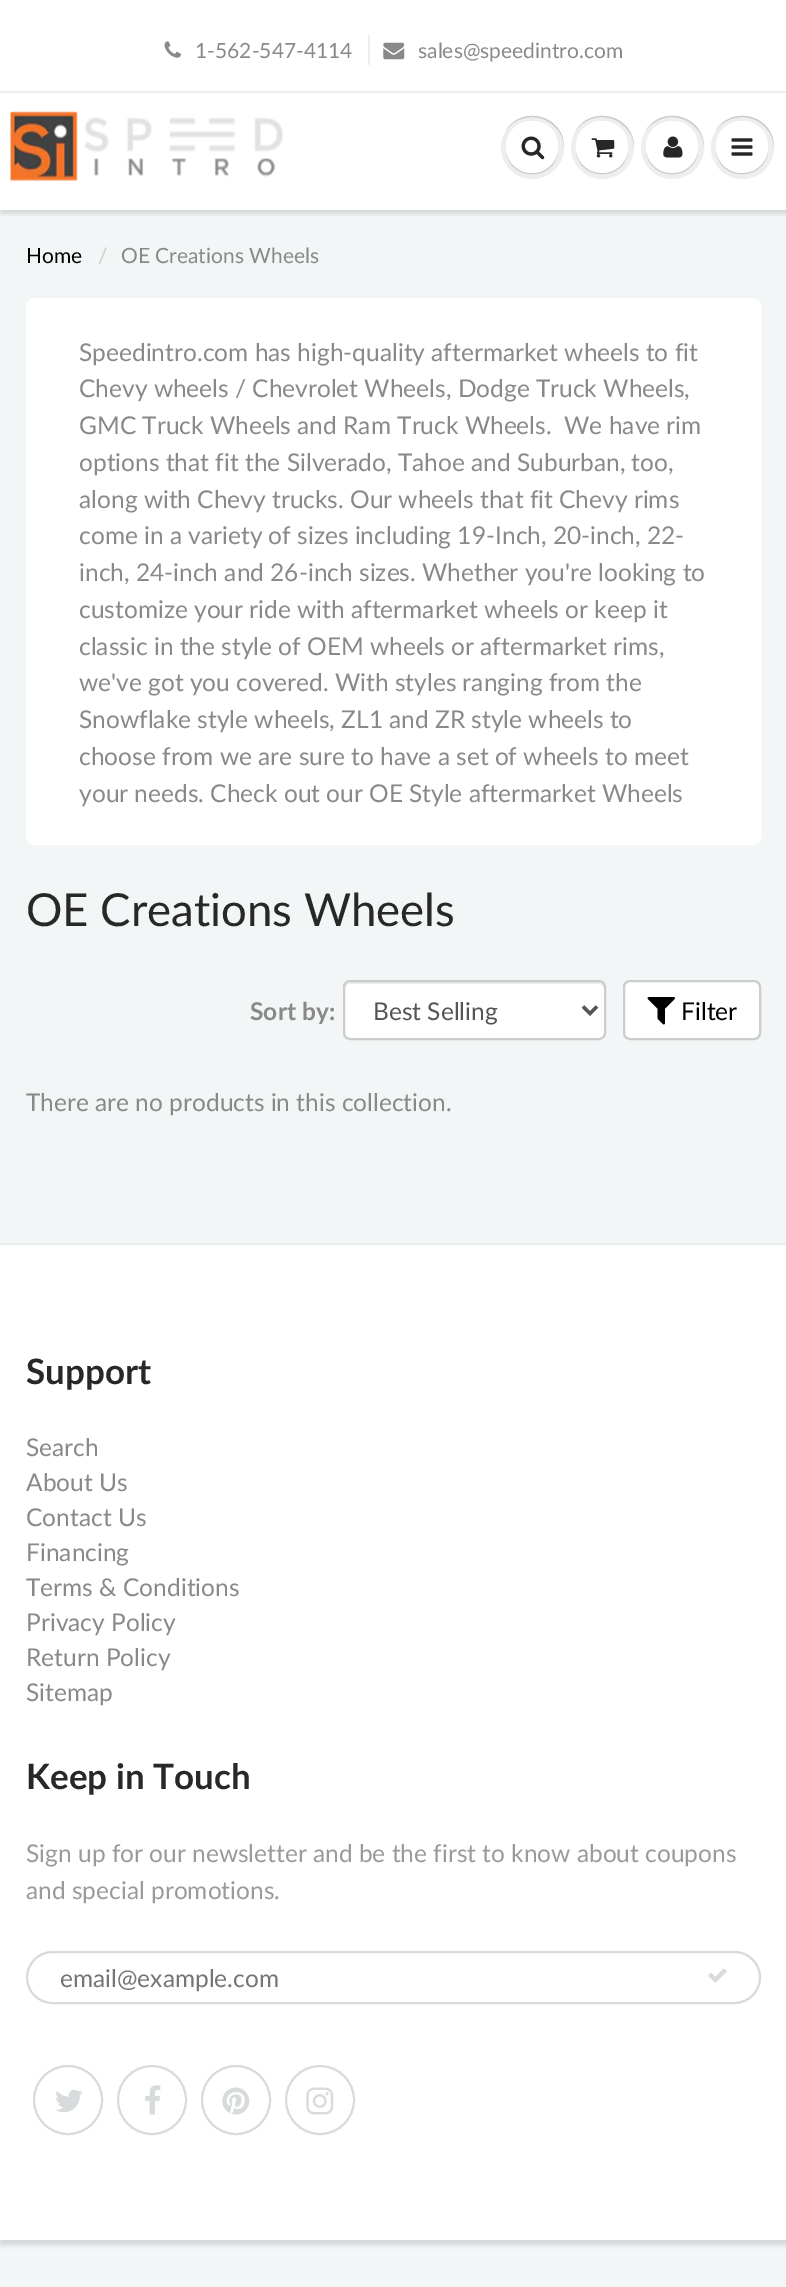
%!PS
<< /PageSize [786 2287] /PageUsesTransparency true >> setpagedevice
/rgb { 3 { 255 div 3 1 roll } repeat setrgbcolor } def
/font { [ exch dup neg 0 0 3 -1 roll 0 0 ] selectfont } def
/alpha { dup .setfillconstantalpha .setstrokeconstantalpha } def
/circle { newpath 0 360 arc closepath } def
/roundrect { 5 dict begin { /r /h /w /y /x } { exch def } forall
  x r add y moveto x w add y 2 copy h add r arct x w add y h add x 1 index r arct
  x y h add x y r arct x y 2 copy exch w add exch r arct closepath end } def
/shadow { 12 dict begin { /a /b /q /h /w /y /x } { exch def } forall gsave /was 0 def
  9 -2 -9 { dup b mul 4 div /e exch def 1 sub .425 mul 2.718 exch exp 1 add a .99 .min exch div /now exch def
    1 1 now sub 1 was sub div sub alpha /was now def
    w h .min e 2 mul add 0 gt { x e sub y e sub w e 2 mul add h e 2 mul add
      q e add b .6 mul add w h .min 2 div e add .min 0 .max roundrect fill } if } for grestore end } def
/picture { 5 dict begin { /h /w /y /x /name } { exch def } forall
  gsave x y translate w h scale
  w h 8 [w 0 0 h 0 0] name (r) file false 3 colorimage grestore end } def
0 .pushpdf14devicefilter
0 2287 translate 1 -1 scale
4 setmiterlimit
255 255 255 rgb
0 0 786 2287 rectfill
(img/1.rgb) 164 41 17 17 picture
236 239 239 rgb
368 35 2 30 rectfill
(img/2.rgb) 383 42 22 18 picture
243 246 246 rgb
0 210 786 1033 rectfill
gsave
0 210 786 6 rectclip
11 25 28 rgb
0 95 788 119 0 2 0.12 shadow
grestore
236 239 239 rgb
0 91 786 2 rectfill
(img/3.rgb) 10 111 273 70 picture
237 239 239 rgb
532.5 147.5 31.5 circle fill
201 203 203 rgb
558 151 moveto 553 180 511 180 506 151 curveto 509 182 555 182 558 151 curveto closepath fill
532 117 moveto 549 117 564 131 564 148 curveto 565 116 523 104 506 130 curveto 512 122 522 117 532 117 curveto closepath fill
255 255 255 rgb
532 147 26 circle fill
532 122 moveto 546 122 557 133 558 148 curveto 558 143 557 137 554 132 curveto 539 111 505 122 506 148 curveto 507 133 518 122 532 122 curveto closepath fill
(img/4.rgb) 521 136 24 24 picture
237 239 239 rgb
602.5 147.5 31.5 circle fill
201 203 203 rgb
628 151 moveto 623 180 581 180 576 151 curveto 579 182 625 182 628 151 curveto closepath fill
602 117 moveto 619 117 634 131 634 148 curveto 635 116 593 104 576 130 curveto 582 122 592 117 602 117 curveto closepath fill
255 255 255 rgb
602 147 26 circle fill
602 122 moveto 616 122 627 133 628 148 curveto 628 143 627 137 624 132 curveto 609 111 575 122 576 148 curveto 577 133 588 122 602 122 curveto closepath fill
(img/5.rgb) 591 138 24 20 picture
237 239 239 rgb
672.5 147.5 31.5 circle fill
201 203 203 rgb
698 151 moveto 693 180 651 180 646 151 curveto 649 182 695 182 698 151 curveto closepath fill
672 117 moveto 689 117 704 131 704 148 curveto 705 116 663 104 646 130 curveto 652 122 662 117 672 117 curveto closepath fill
255 255 255 rgb
672 147 26 circle fill
672 122 moveto 686 122 697 133 698 148 curveto 698 143 697 137 694 132 curveto 679 111 645 122 646 148 curveto 647 133 658 122 672 122 curveto closepath fill
(img/6.rgb) 663 136 20 22 picture
237 239 239 rgb
742.5 147.5 31.5 circle fill
201 203 203 rgb
768 151 moveto 763 180 721 180 716 151 curveto 719 182 765 182 768 151 curveto closepath fill
742 117 moveto 759 117 774 131 774 148 curveto 775 116 733 104 716 130 curveto 722 122 732 117 742 117 curveto closepath fill
255 255 255 rgb
742 147 26 circle fill
742 122 moveto 756 122 767 133 768 148 curveto 768 143 767 137 764 132 curveto 749 111 715 122 716 148 curveto 717 133 728 122 742 122 curveto closepath fill
(img/7.rgb) 731 138 22 18 picture
9 setlinewidth
30.5 302.5 726 538 4.5 roundrect stroke
35 307 717 529 rectfill
343 980 263 60 7 roundrect fill
236 236 236 rgb
350 984 moveto 598 984 lineto 601 984 604 986 604 989 curveto 604 987 lineto 604 984 602 982 599 982 curveto 350 982 lineto 347 982 345 984 345 987 curveto 345 989 lineto 345 986 347 984 350 984 curveto closepath fill
204 204 204 rgb
2 setlinewidth
344 981 261 58 6 roundrect stroke
85 85 85 rgb
3.5 setlinewidth
583 1006.5 moveto 590 1013.5 lineto 597 1006.5 lineto stroke
255 255 255 rgb
624 981 136 58 6 roundrect gsave fill grestore
204 204 204 rgb
2 setlinewidth
stroke
(img/8.rgb) 647 997 28 28 picture
243 246 246 rgb
0 2240 786 47 rectfill
gsave
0 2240 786 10 rectclip
209 215 215 rgb
0 1248 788 997 0 2.5 1 shadow
grestore
236 239 239 rgb
0 1243 786 2 rectfill
215 219 219 rgb
27 1952 733 51 25.5 roundrect stroke
(img/9.rgb) 708 1968 19 15 picture
68 2100 34 circle stroke
(img/10.rgb) 55 2089 28 24 picture
152 2100 34 circle stroke
(img/11.rgb) 145 2085 16 30 picture
236 2100 34 circle stroke
(img/12.rgb) 222 2087 28 28 picture
320 2100 34 circle stroke
(img/13.rgb) 306 2087 28 28 picture
/Lato-Regular 21 font
137 137 137 rgb
195 58 moveto (1-562-547-4114) show
418 58 moveto (sales@speedintro.com) show
0 0 0 rgb
26 263 moveto (Home) show
204 204 204 rgb
98 263 moveto (/) show
137 137 137 rgb
121 263 moveto (OE Creations Wheels) show
/Lato-Regular 24.5 font
[
  [(Speedintro.com has high-quality aftermarket wheels to fit) 79 361]
  [(Chevy wheels / Chevrolet Wheels, Dodge Truck Wheels,) 79 397]
  [(GMC Truck Wheels and Ram Truck Wheels.  We have rim) 79 434]
  [(options that fit the Silverado, Tahoe and Suburban, too,) 79 471]
  [(along with Chevy trucks. Our wheels that fit Chevy rims) 79 508]
  [(come in a variety of sizes including 19-Inch, 20-inch, 22-) 79 544]
  [(inch, 24-inch and 26-inch sizes. Whether you're looking to) 79 581]
  [(customize your ride with aftermarket wheels or keep it) 79 618]
  [(classic in the style of OEM wheels or aftermarket rims,) 79 655]
  [(we've got you covered. With styles ranging from the) 79 691]
  [(Snowflake style wheels, ZL1 and ZR style wheels to) 79 728]
  [(choose from we are sure to have a set of wheels to meet) 79 765]
  [(your needs. Check out our OE Style aftermarket Wheels) 79 802]
] { aload pop moveto show } forall
/Lato-Regular 45.5 font
40 40 39 rgb
26 926 moveto (OE Creations Wheels) show
/Lato-Bold 24.5 font
137 137 137 rgb
250 1020 moveto (Sort by:) show
/Lato-Regular 24.5 font
85 85 85 rgb
373 1020 moveto (Best Selling) show
0 0 0 rgb
681 1020 moveto (Filter) show
137 137 137 rgb
26 1111 moveto (There are no products in this collection.) show
/Lato-Bold 35 font
40 40 39 rgb
26 1384 moveto (Support) show
/Lato-Regular 24.5 font
137 137 137 rgb
[
  [(Search) 26 1456]
  [(About Us) 26 1491]
  [(Contact Us) 26 1526]
  [(Financing) 26 1561]
  [(Terms & Conditions) 26 1596]
  [(Privacy Policy) 26 1631]
  [(Return Policy) 26 1666]
  [(Sitemap) 26 1701]
] { aload pop moveto show } forall
/Lato-Bold 35 font
40 40 39 rgb
26 1789 moveto (Keep in Touch) show
/Lato-Regular 24.5 font
154 154 154 rgb
26 1862 moveto (Sign up for our newsletter and be the first to know about coupons) show
26 1899 moveto (and special promotions.) show
117 117 117 rgb
60 1987 moveto (email@example.com) show
.poppdf14devicefilter showpage
